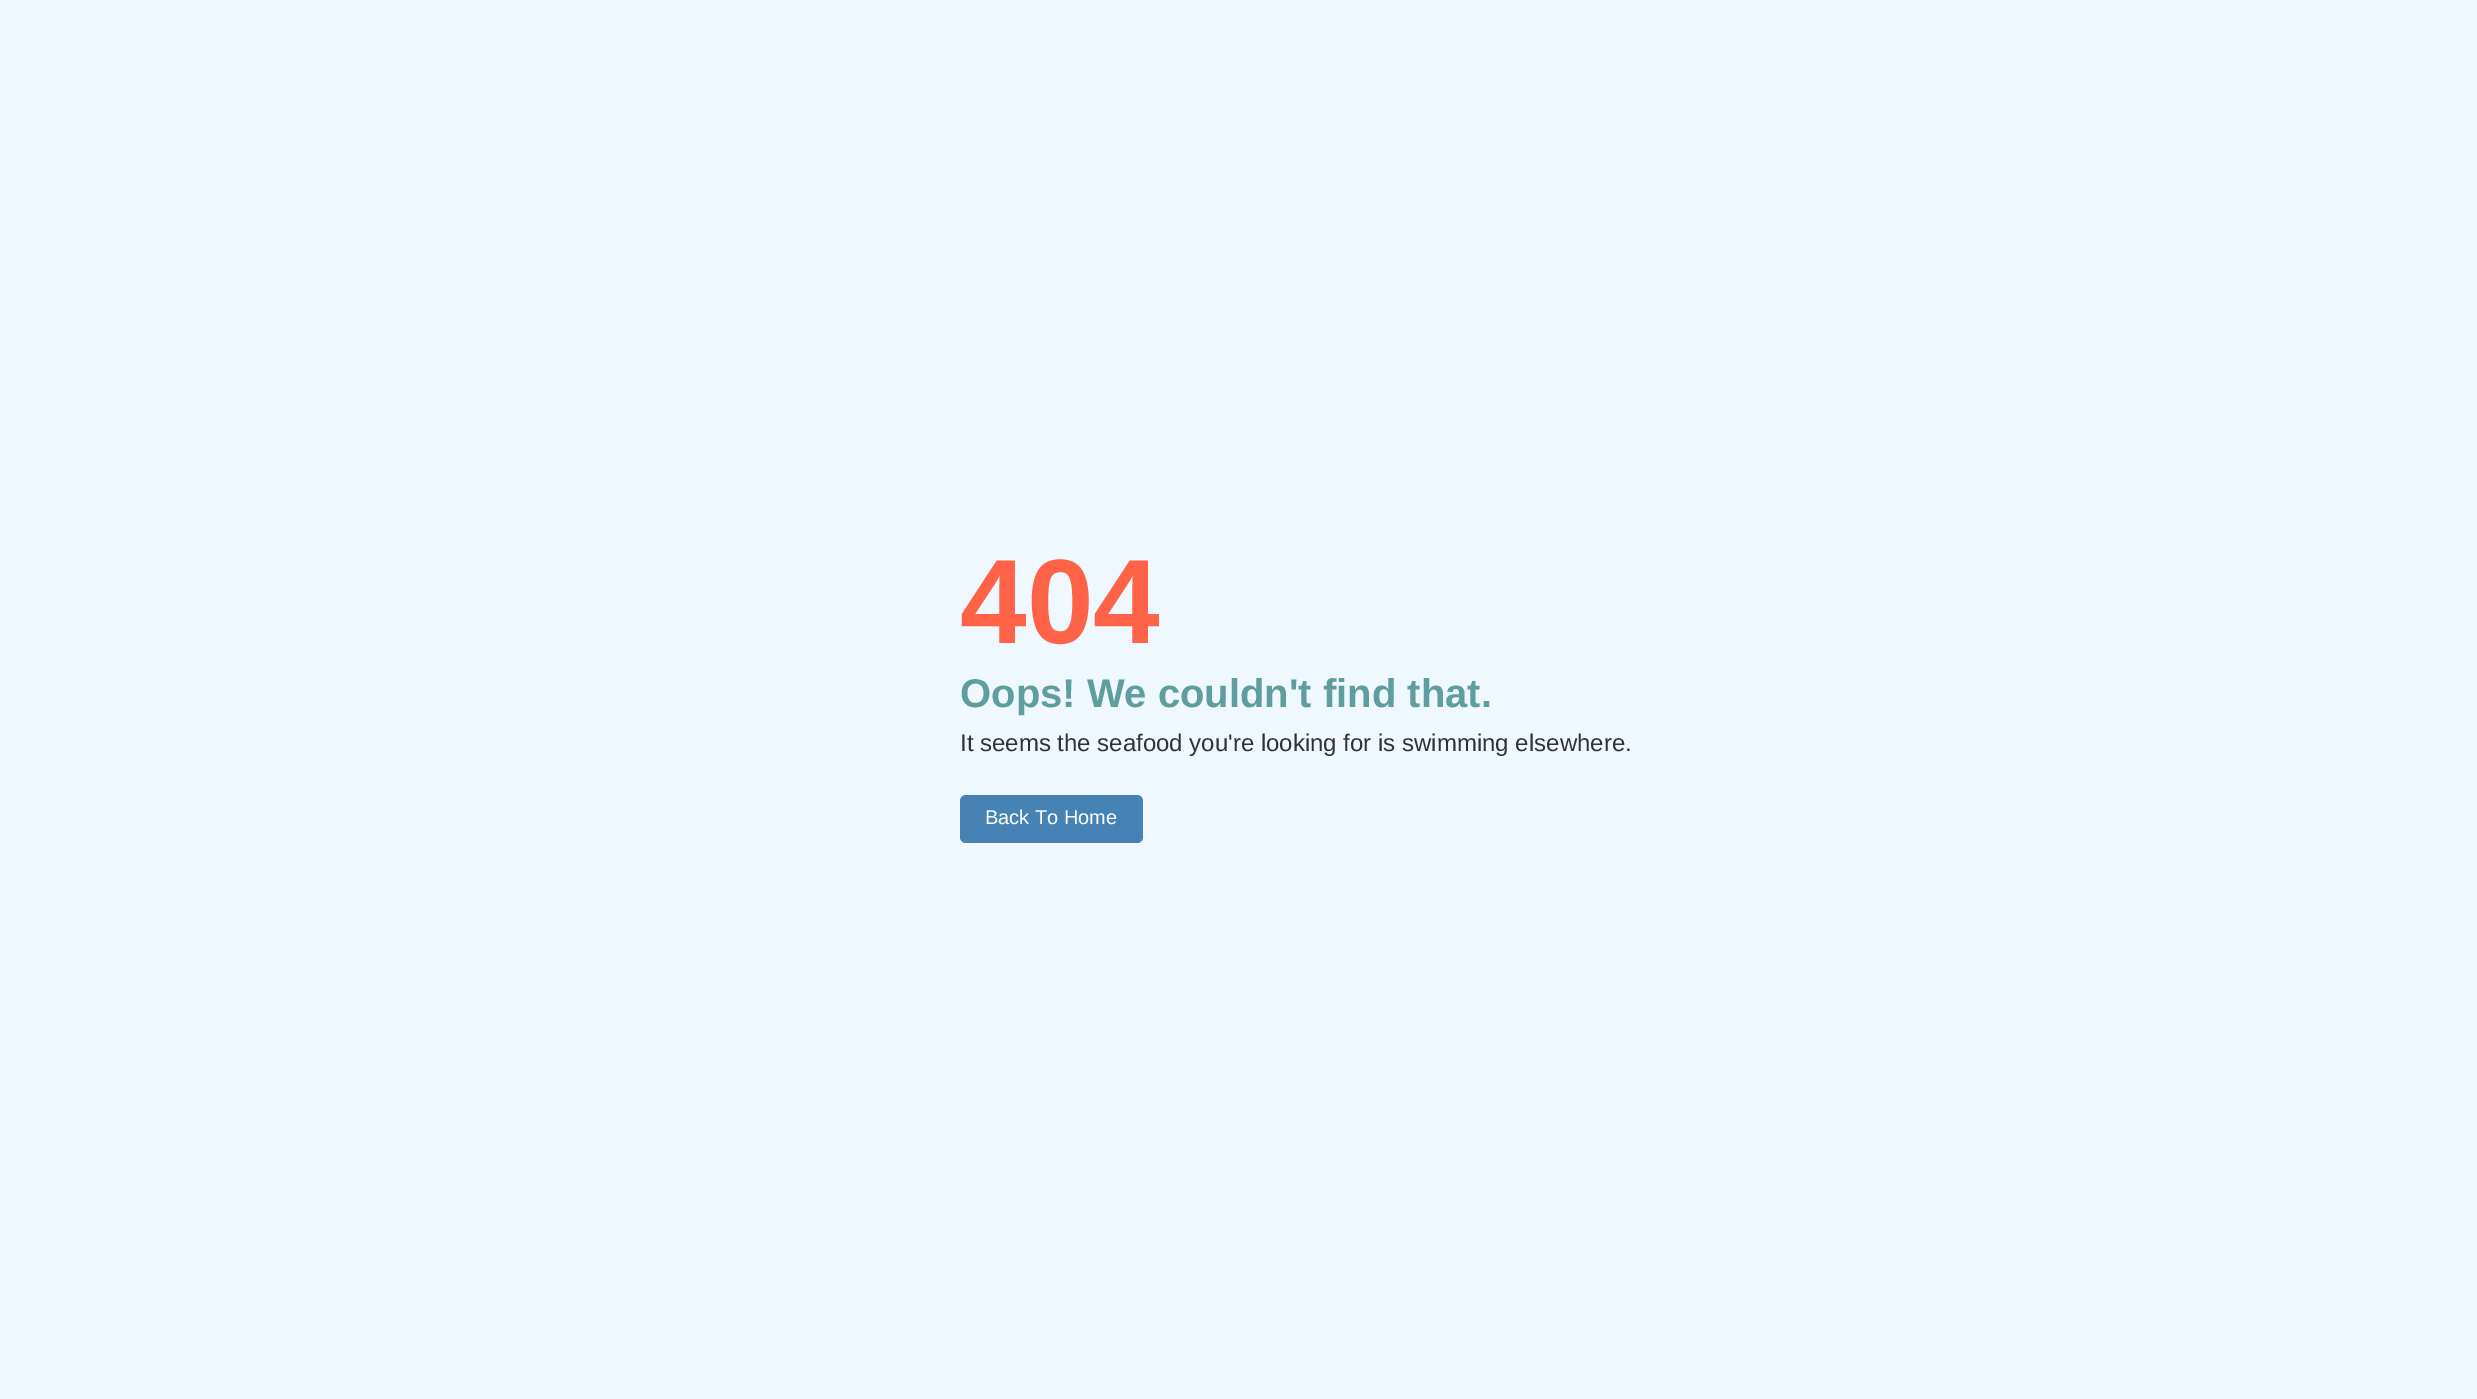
%!PS
<< /PageSize [2477 1399] >> setpagedevice
/rgb { 3 { 255 div 3 1 roll } repeat setrgbcolor } def
/font { [ exch dup neg 0 0 3 -1 roll 0 0 ] selectfont } def
/roundrect { 5 dict begin { /r /h /w /y /x } { exch def } forall
  x r add y moveto x w add y 2 copy h add r arct x w add y h add x 1 index r arct
  x y h add x y r arct x y 2 copy exch w add exch r arct closepath end } def
0 1399 translate 1 -1 scale
4 setmiterlimit
240 248 255 rgb
0 0 2477 1399 rectfill
70 130 180 rgb
960 795 183 48 6 roundrect fill
/LiberationSans-Bold 120 font
255 99 71 rgb
960 643 moveto (404) show
/LiberationSans-Bold 40 font
95 158 160 rgb
960 707 moveto (Oops! We couldn't find that.) show
/LiberationSans-Regular 24 font
51 51 51 rgb
960 751 moveto (It seems the seafood you're looking for is swimming elsewhere.) show
/LiberationSans-Regular 20 font
255 255 255 rgb
985 824 moveto (Back To Home) show
showpage
